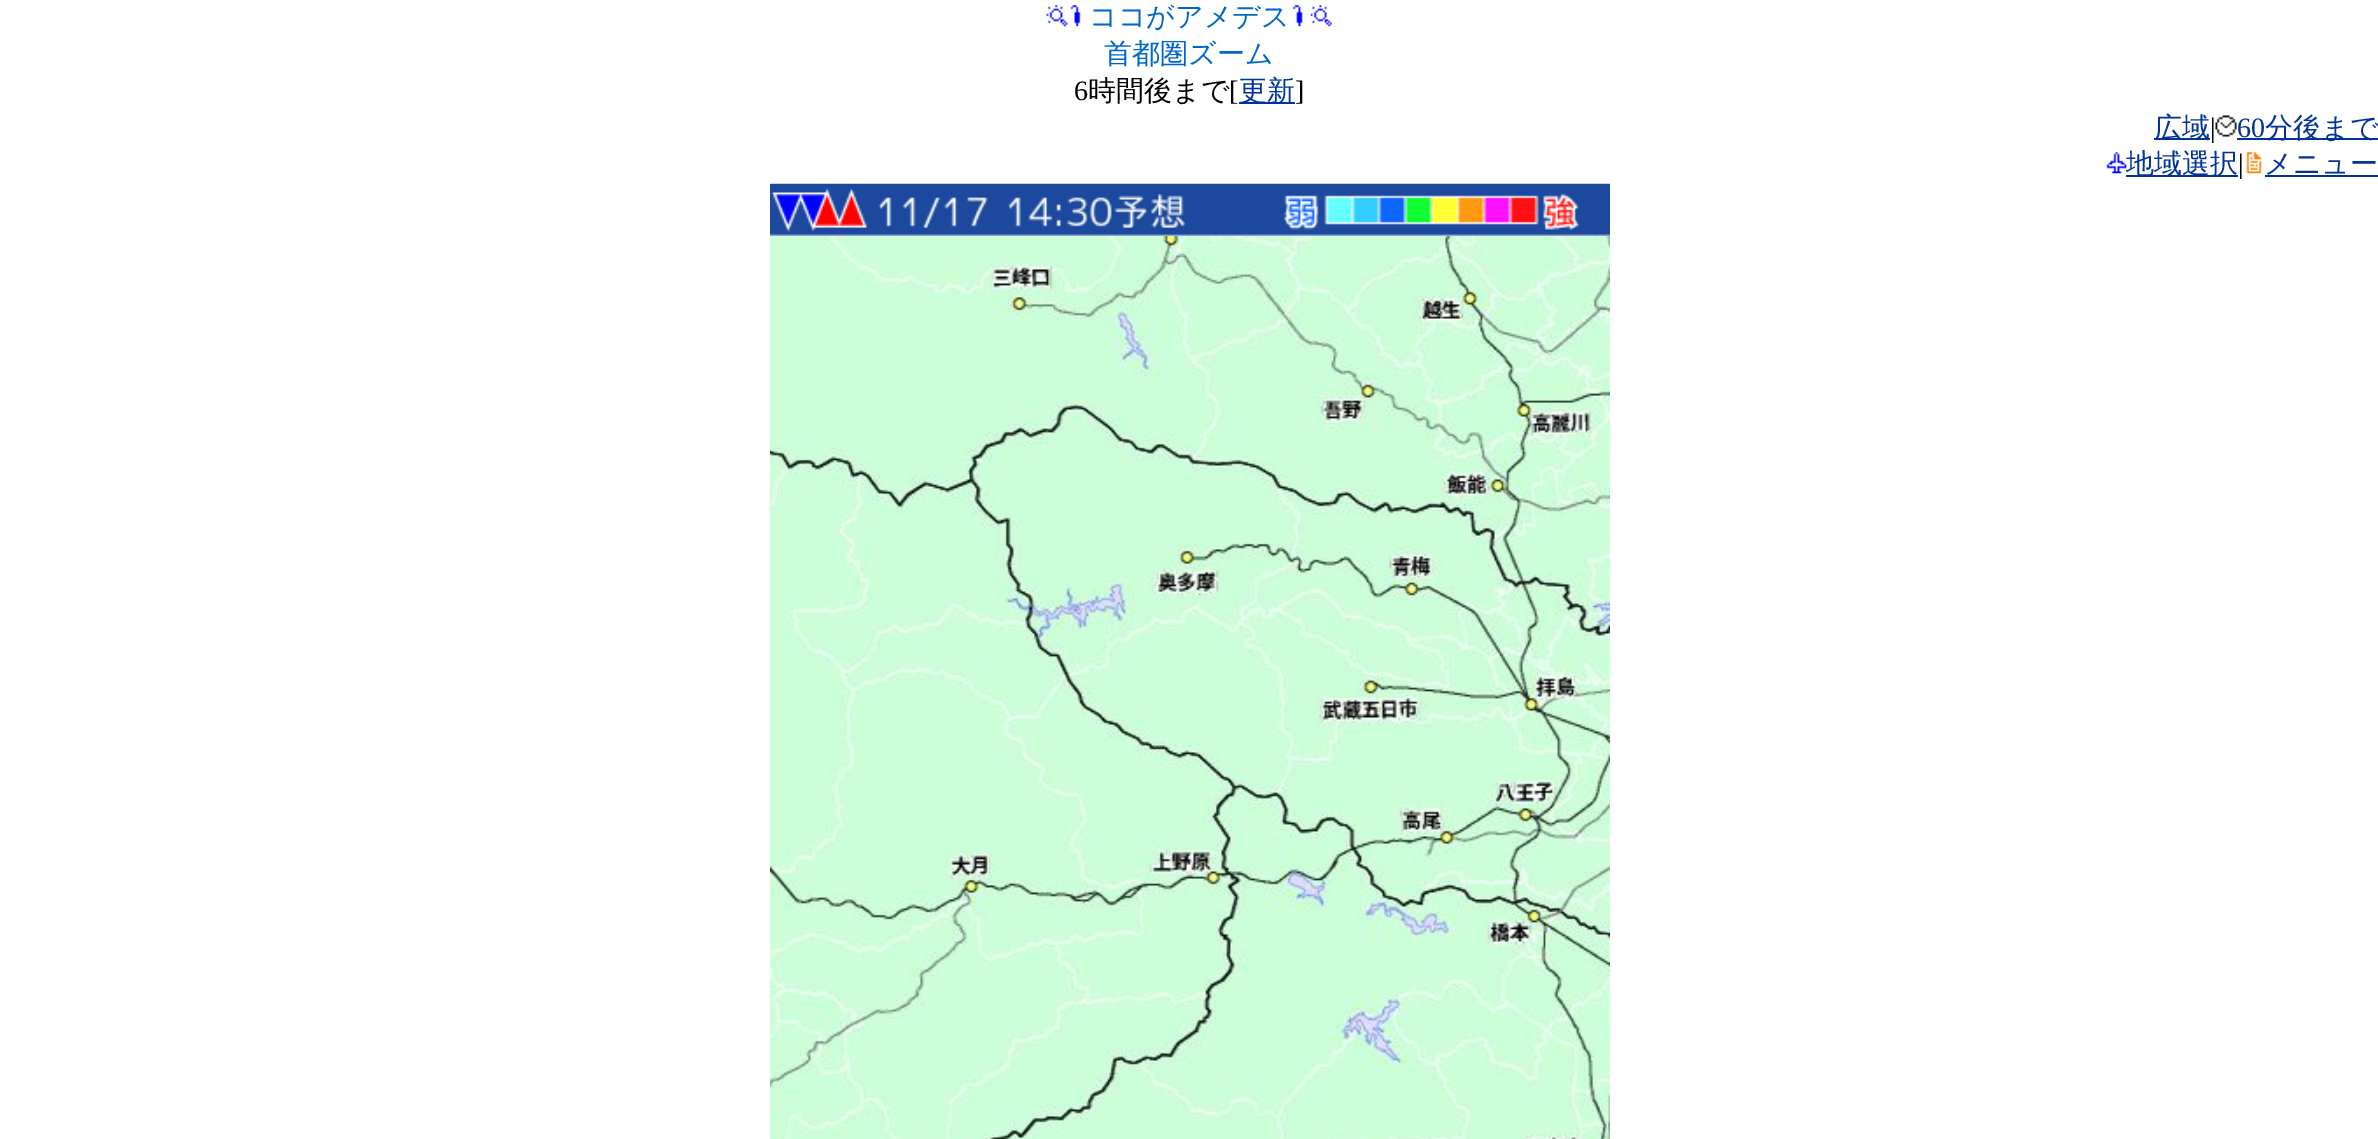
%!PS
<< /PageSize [2378 1139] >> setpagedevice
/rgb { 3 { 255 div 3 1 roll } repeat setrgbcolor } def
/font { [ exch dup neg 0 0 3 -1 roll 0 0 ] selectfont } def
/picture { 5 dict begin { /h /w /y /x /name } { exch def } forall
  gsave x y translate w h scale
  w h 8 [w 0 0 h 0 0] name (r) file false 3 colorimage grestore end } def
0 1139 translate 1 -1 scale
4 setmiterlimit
255 255 255 rgb
0 0 2378 1139 rectfill
(img/1.rgb) 1046 5 22 22 picture
(img/2.rgb) 1070 5 11 22 picture
(img/3.rgb) 1292 5 11 22 picture
(img/4.rgb) 1310 5 22 22 picture
0 51 153 rgb
1239 102 56 2 rectfill
2154 138 56 2 rectfill
(img/5.rgb) 2215 115 22 22 picture
2237 138 141 2 rectfill
(img/6.rgb) 2106 152 21 22 picture
2126 175 112 2 rectfill
(img/7.rgb) 2246 152 16 22 picture
2265 175 113 2 rectfill
(img/8.rgb) 770 183 840 54 picture
(img/9.rgb) 770 236 840 903 picture
/WenQuanYiZenHei-Medium 28 font
0 102 204 rgb
1089 26 moveto (ココがアメデス) show
1104 63 moveto (首都圏ズーム) show
/LiberationSerif-Regular 28 font
0 0 0 rgb
1074 100 moveto (6) show
/WenQuanYiZenHei-Medium 28 font
1088 100 moveto (時間後まで) show
/LiberationSerif-Regular 28 font
1229 100 moveto ([) show
/WenQuanYiZenHei-Medium 28 font
0 51 153 rgb
1239 100 moveto (更新) show
/LiberationSerif-Regular 28 font
0 0 0 rgb
1295 100 moveto (]) show
/WenQuanYiZenHei-Medium 28 font
0 51 153 rgb
2154 137 moveto (広域) show
/LiberationSerif-Regular 28 font
0 0 0 rgb
2210 137 moveto (|) show
0 51 153 rgb
2237 137 moveto (60) show
/WenQuanYiZenHei-Medium 28 font
2265 137 moveto (分後まで) show
2126 173 moveto (地域選択) show
/LiberationSerif-Regular 28 font
0 0 0 rgb
2238 173 moveto (|) show
/WenQuanYiZenHei-Medium 28 font
0 51 153 rgb
2264 173 moveto (メニュー) show
showpage
